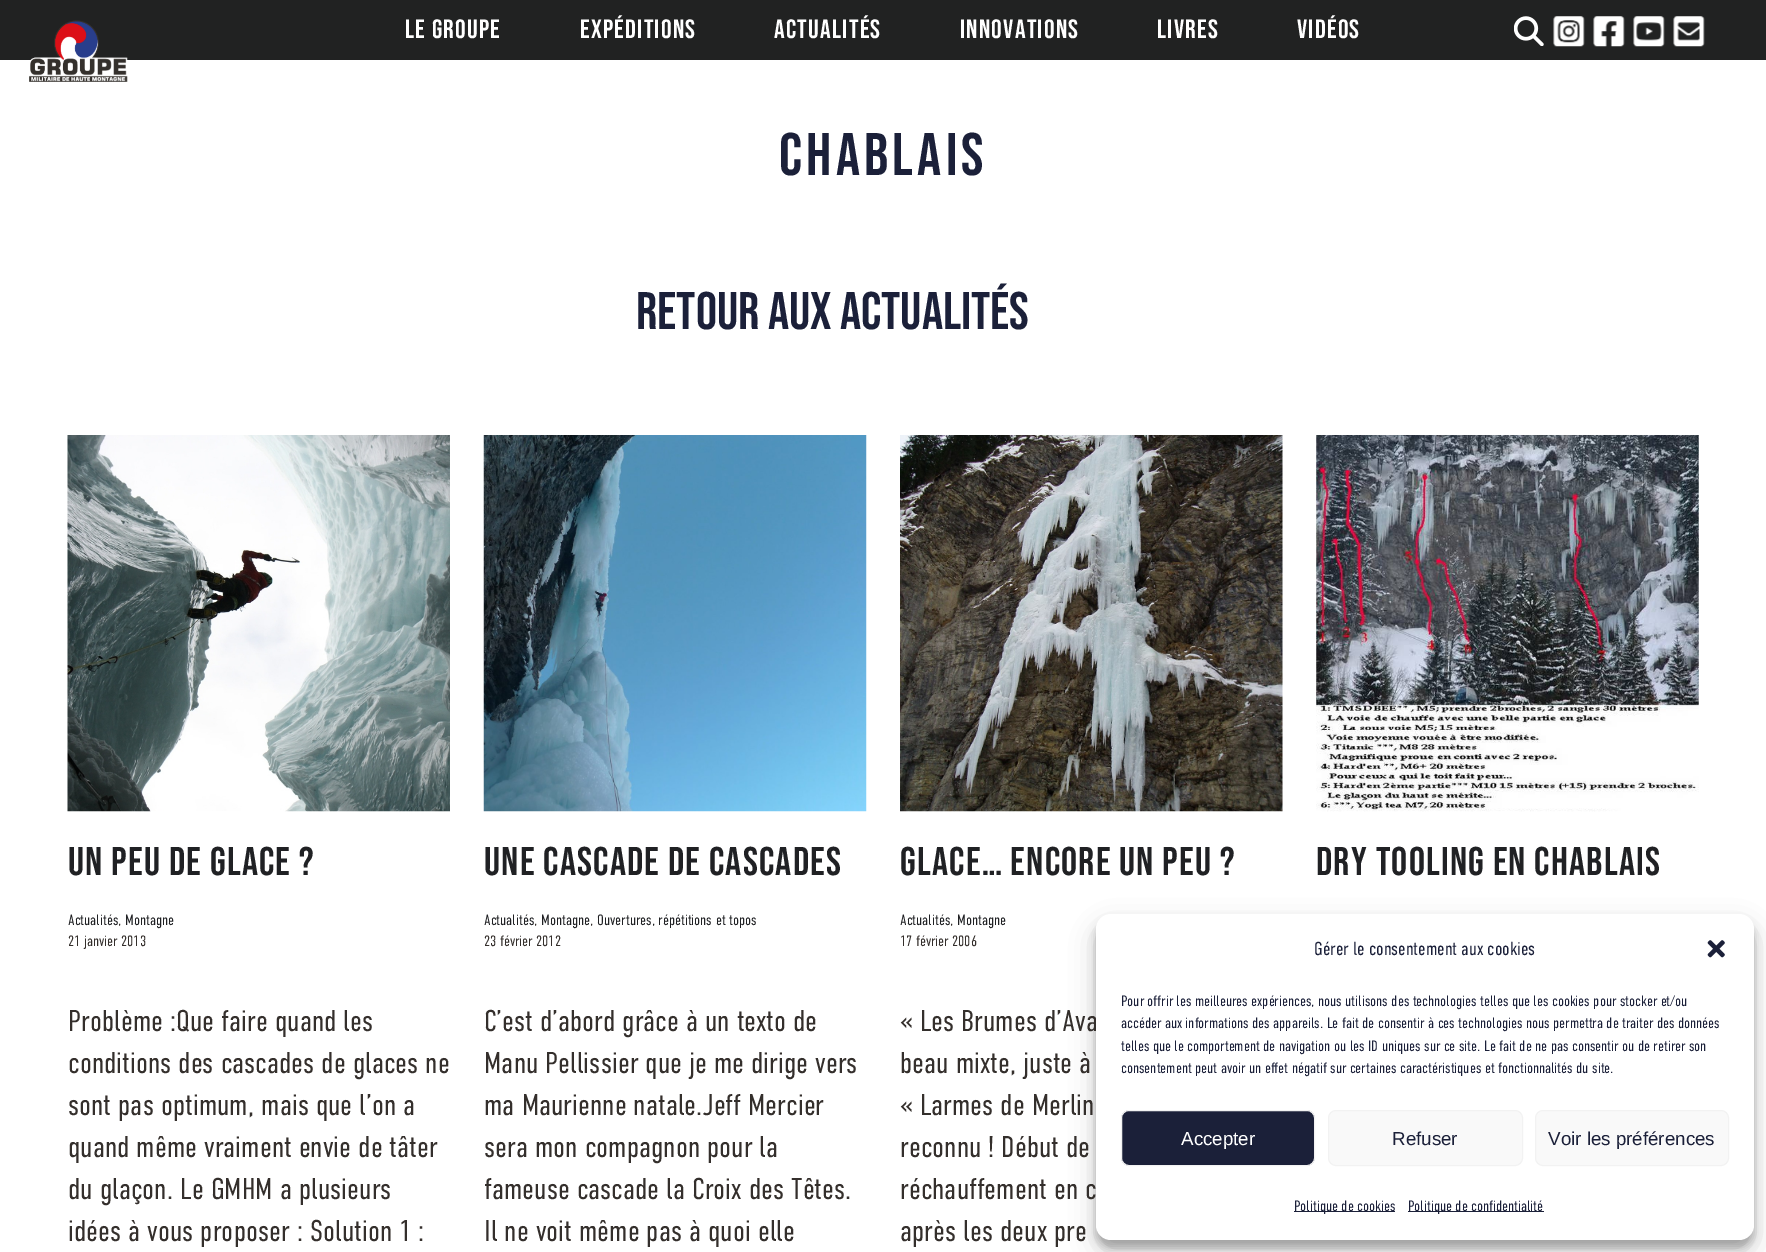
%!PS
<< /PageSize [1766 1252] /PageUsesTransparency true >> setpagedevice
/rgb { 3 { 255 div 3 1 roll } repeat setrgbcolor } def
/font { [ exch dup neg 0 0 3 -1 roll 0 0 ] selectfont } def
/alpha { dup .setfillconstantalpha .setstrokeconstantalpha } def
/roundrect { 5 dict begin { /r /h /w /y /x } { exch def } forall
  x r add y moveto x w add y 2 copy h add r arct x w add y h add x 1 index r arct
  x y h add x y r arct x y 2 copy exch w add exch r arct closepath end } def
/shadow { 12 dict begin { /a /b /q /h /w /y /x } { exch def } forall gsave /was 0 def
  9 -2 -9 { dup b mul 4 div /e exch def 1 sub .425 mul 2.718 exch exp 1 add a .99 .min exch div /now exch def
    1 1 now sub 1 was sub div sub alpha /was now def
    w h .min e 2 mul add 0 gt { x e sub y e sub w e 2 mul add h e 2 mul add
      q e add b .6 mul add w h .min 2 div e add .min 0 .max roundrect fill } if } for grestore end } def
/picture { 5 dict begin { /h /w /y /x /name } { exch def } forall
  gsave x y translate w h scale
  w h 8 [w 0 0 h 0 0] name (r) file false 3 colorimage grestore end } def
0 .pushpdf14devicefilter
0 1252 translate 1 -1 scale
4 setmiterlimit
255 255 255 rgb
0 0 1766 1252 rectfill
33 34 34 rgb
0 0 1766 60 rectfill
(img/1.rgb) 29 20 99 62 picture
(img/2.rgb) 1514 16 30 30 picture
(img/3.rgb) 1553 16 32 31 picture
(img/4.rgb) 1593 16 32 31 picture
(img/5.rgb) 1633 16 32 31 picture
(img/6.rgb) 1673 16 32 31 picture
(img/7.rgb) 67 435 383 377 picture
(img/8.rgb) 483 435 384 377 picture
(img/9.rgb) 900 435 383 377 picture
(img/10.rgb) 1316 435 383 377 picture
0 0 0 rgb
1096 921 658 327 15 4 0.23 shadow
1096 926 658 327 15 12.5 0.19 shadow
/BebasNeue-Regular 26.5 font
255 255 255 rgb
405 38 moveto 1.25 0 (Le Groupe) ashow
580 38 moveto 1.25 0 (Expéditions) ashow
774 38 moveto 1.25 0 (Actualités) ashow
960 38 moveto 1.25 0 (Innovations) ashow
1157 38 moveto 1.25 0 (Livres) ashow
1297 38 moveto 1.25 0 (Vidéos) ashow
/BebasNeue-Regular 60 font
27 32 57 rgb
779 175 moveto 4.25 0 (Chablais) ashow
/BebasNeue-Regular 52.75 font
636 329 moveto (RETOUR AUX ACTUALITÉS) show
/BebasNeue-Regular 40 font
32 33 36 rgb
68 875 moveto 1.25 0 (Un peu de glace ?) ashow
/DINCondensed-Light 15 font
68 925 moveto (Actualités) show
52 47 44 rgb
118 925 moveto (,) show
32 33 36 rgb
125 925 moveto (Montagne) show
52 47 44 rgb
68 946 moveto (21 janvier 2013) show
/DINCondensed-Light 30 font
[
  [(Problème :Que faire quand les) 68 1031]
  [(conditions des cascades de glaces ne) 68 1073]
  [(sont pas optimum, mais que l’on a) 68 1115]
  [(quand même vraiment envie de tâter) 68 1157]
  [(du glaçon. Le GMHM a plusieurs) 68 1199]
  [(idées à vous proposer : Solution 1 :) 68 1241]
] { aload pop moveto show } forall
/BebasNeue-Regular 40 font
32 33 36 rgb
484 875 moveto 1.25 0 (Une cascade de cascades) ashow
/DINCondensed-Light 15 font
484 925 moveto (Actualités) show
52 47 44 rgb
534 925 moveto (,) show
32 33 36 rgb
541 925 moveto (Montagne) show
52 47 44 rgb
590 925 moveto (,) show
32 33 36 rgb
597 925 moveto (Ouvertures, répétitions et topos) show
52 47 44 rgb
484 946 moveto (23 février 2012) show
/DINCondensed-Light 30 font
[
  [(C’est d’abord grâce à un texto de) 484 1031]
  [(Manu Pellissier que je me dirige vers) 484 1073]
  [(ma Maurienne natale.Jeff Mercier) 484 1115]
  [(sera mon compagnon pour la) 484 1157]
  [(fameuse cascade la Croix des Têtes.) 484 1199]
  [(Il ne voit même pas à quoi elle) 484 1241]
] { aload pop moveto show } forall
/BebasNeue-Regular 40 font
32 33 36 rgb
900 875 moveto 1.25 0 (Glace… Encore un peu ?) ashow
/DINCondensed-Light 15 font
900 925 moveto (Actualités) show
52 47 44 rgb
950 925 moveto (,) show
32 33 36 rgb
957 925 moveto (Montagne) show
52 47 44 rgb
900 946 moveto (17 février 2006) show
/DINCondensed-Light 30 font
[
  [(« Les Brumes d’Ava) 900 1031]
  [(beau mixte, juste à) 900 1073]
  [(« Larmes de Merlin) 900 1115]
  [(reconnu ! Début de) 900 1157]
  [(réchauffement en c) 900 1199]
  [(après les deux pre) 900 1241]
] { aload pop moveto show } forall
/BebasNeue-Regular 40 font
32 33 36 rgb
1316 875 moveto 1.25 0 (Dry tooling en Chablais) ashow
255 255 255 rgb
1096 914 658 326 15 roundrect fill
/DINCondensed-Light 18.75 font
27 32 57 rgb
1314 955 moveto (Gérer le consentement aux cookies) show
(img/11.rgb) 1707 940 18 18 picture
/DINCondensed-Light 15 font
[
  [(Pour offrir les meilleures expériences, nous utilisons des technologies telles que les cookies pour stocker et/ou) 1121 1006]
  [(accéder aux informations des appareils. Le fait de consentir à ces technologies nous permettra de traiter des données) 1121 1028]
  [(telles que le comportement de navigation ou les ID uniques sur ce site. Le fait de ne pas consentir ou de retirer son) 1121 1051]
  [(consentement peut avoir un effet négatif sur certaines caractéristiques et fonctionnalités du site.) 1121 1073]
] { aload pop moveto show } forall
1121.5 1110.5 193 55 7.5 roundrect gsave fill grestore
242 242 242 rgb
stroke
/LiberationSans-Regular 18.75 font
255 255 255 rgb
1181 1145 moveto (Accepter) show
249 249 249 rgb
1328.5 1110.5 194 55 7.5 roundrect gsave fill grestore
242 242 242 rgb
stroke
27 32 57 rgb
1392 1145 moveto (Refuser) show
249 249 249 rgb
1535.5 1110.5 193 55 7.5 roundrect gsave fill grestore
242 242 242 rgb
stroke
27 32 57 rgb
1548 1145 moveto (Voir les préférences) show
1294 1211 101 1 rectfill
/DINCondensed-Light 15 font
1294 1211 moveto (Politique de cookies) show
1408 1211 136 1 rectfill
1408 1211 moveto (Politique de confidentialité) show
.poppdf14devicefilter showpage
